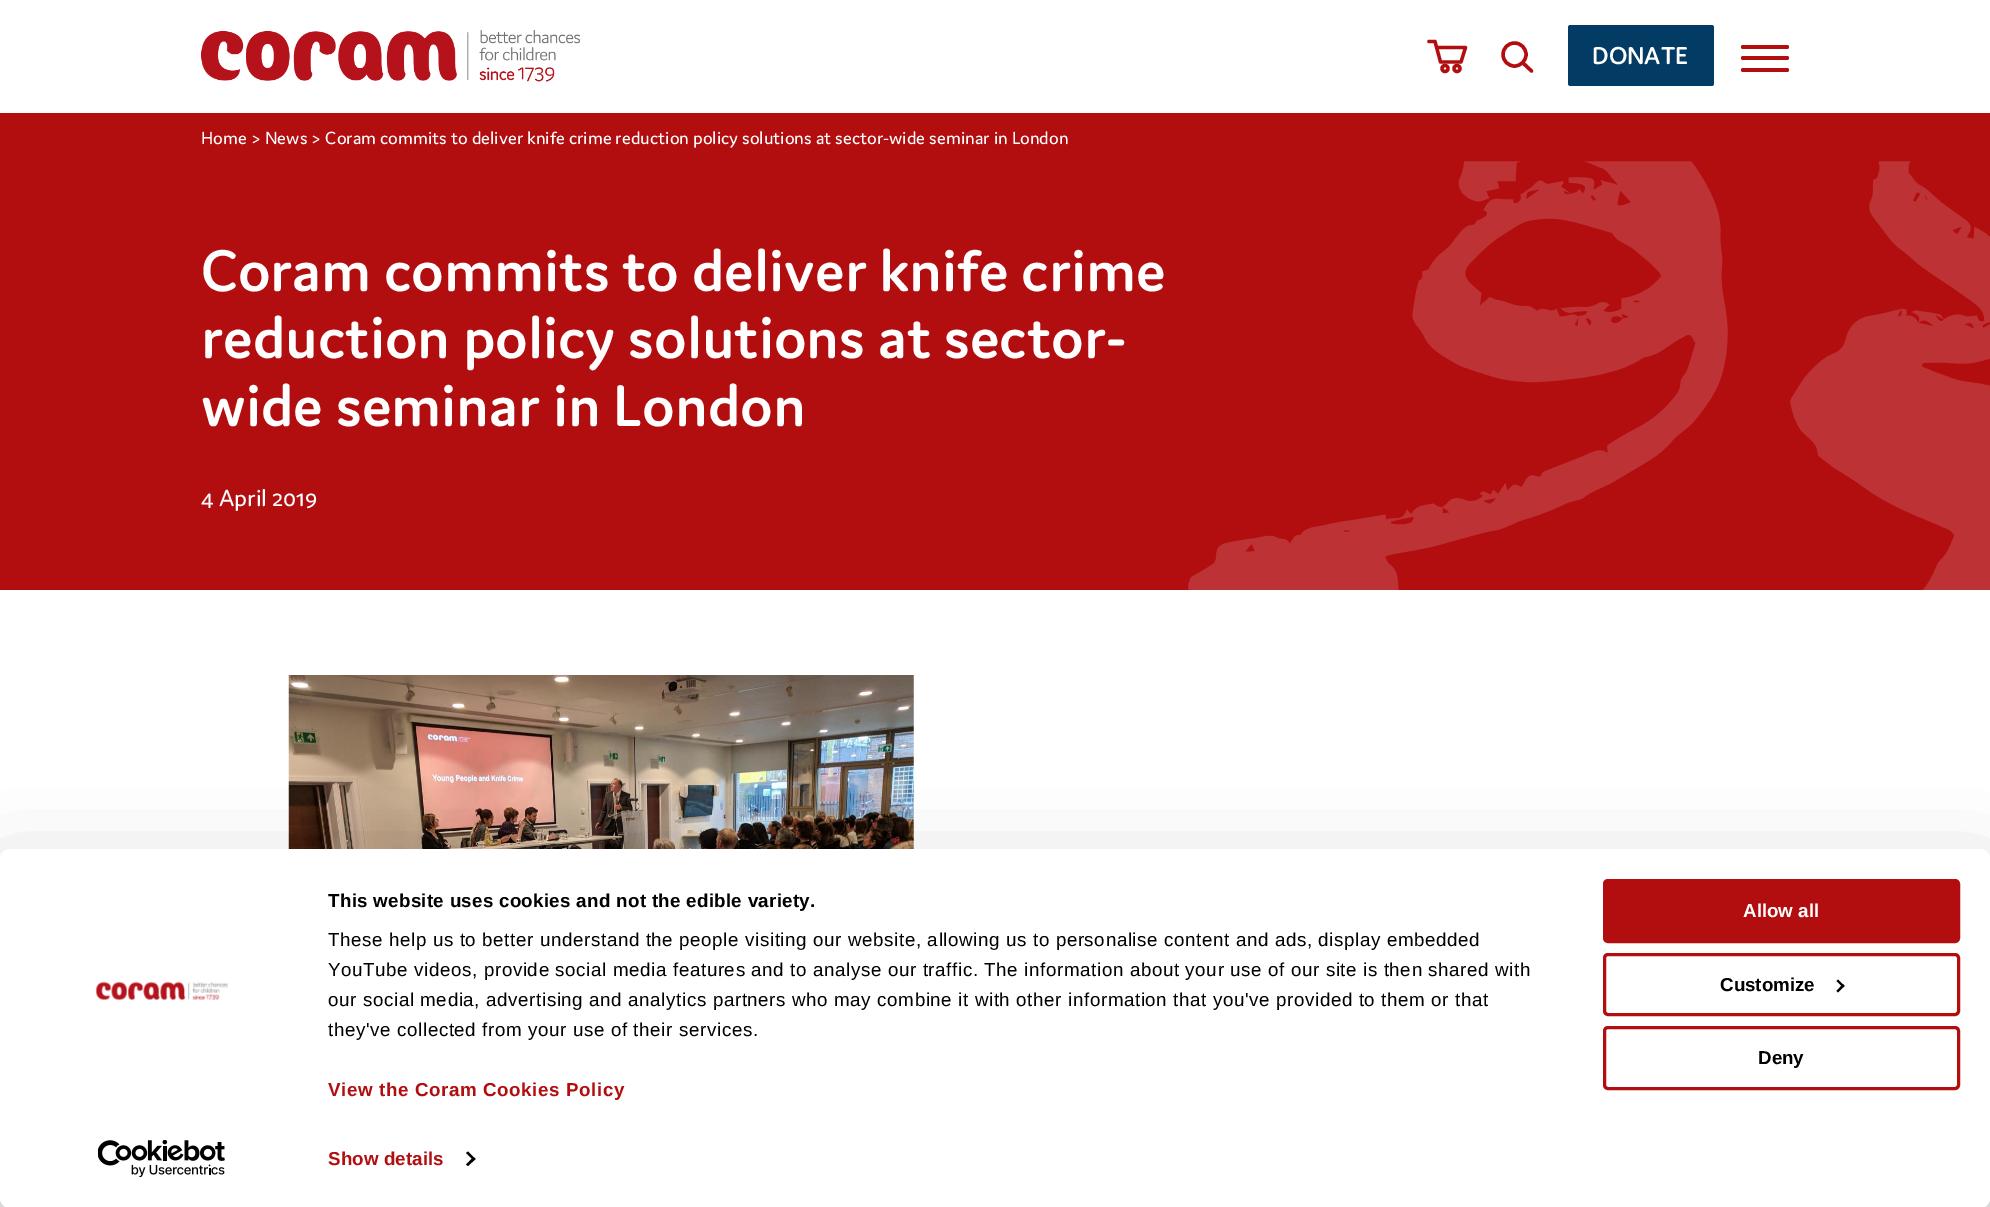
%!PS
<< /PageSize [1990 1207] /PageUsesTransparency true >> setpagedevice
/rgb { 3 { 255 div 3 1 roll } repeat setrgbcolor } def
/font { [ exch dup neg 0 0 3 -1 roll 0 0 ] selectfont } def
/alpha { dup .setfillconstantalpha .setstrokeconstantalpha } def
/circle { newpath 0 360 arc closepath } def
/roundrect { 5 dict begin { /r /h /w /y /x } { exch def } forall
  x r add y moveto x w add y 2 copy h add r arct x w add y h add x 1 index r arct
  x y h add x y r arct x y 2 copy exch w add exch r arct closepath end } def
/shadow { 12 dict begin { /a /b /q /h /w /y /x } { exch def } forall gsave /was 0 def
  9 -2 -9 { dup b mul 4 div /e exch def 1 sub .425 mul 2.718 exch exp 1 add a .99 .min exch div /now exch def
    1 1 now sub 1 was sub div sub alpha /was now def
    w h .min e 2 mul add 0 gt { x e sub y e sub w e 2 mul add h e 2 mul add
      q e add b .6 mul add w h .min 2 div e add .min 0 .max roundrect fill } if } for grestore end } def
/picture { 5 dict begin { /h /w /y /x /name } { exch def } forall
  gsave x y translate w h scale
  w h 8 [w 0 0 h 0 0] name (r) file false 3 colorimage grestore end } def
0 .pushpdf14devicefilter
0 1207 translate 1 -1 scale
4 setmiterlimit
255 255 255 rgb
0 0 1990 1207 rectfill
(img/1.rgb) 201 30 379 52 picture
178 14 16 rgb
3.3 setlinewidth
1 setlinecap
1 setlinejoin
1429 41.5 moveto 1435 41.5 lineto 1440.5 62 lineto 1461 62 lineto 1465.5 47.5 lineto 1437.5 47.5 lineto stroke
0 setlinecap
0 setlinejoin
1445 68.5 3 circle stroke
1457 68.5 3 circle stroke
3.4 setlinewidth
1514.5 54.5 11.5 circle stroke
1 setlinecap
1523 63 moveto 1531.5 71 lineto stroke
2 59 100 rgb
1568 25 146 61 2.5 roundrect fill
178 14 16 rgb
1741 45 48 4 2 roundrect fill
1741 56 48 4 2 roundrect fill
1741 68 48 4 2 roundrect fill
0 113 1990 477 rectfill
(img/2.rgb) 1188 161 802 429 picture
(img/3.rgb) 288 675 626 174 picture
0 0 0 rgb
0 886 1990 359 10 44 0.3 shadow
255 255 255 rgb
0 849 1990 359 10 roundrect fill
(img/4.rgb) 95 981 133 19 picture
(img/5.rgb) 98 1140 127 38 picture
0 0 0 rgb
468 1151.5 moveto 475.5 1159 lineto 473.5 1160.5 lineto 466 1153 lineto closepath fill
473.5 1157 moveto 475.5 1159 lineto 468 1166 lineto 466 1164.5 lineto closepath fill
178 14 16 rgb
1604.5 880.5 354 61 3.5 roundrect gsave fill grestore
3 setlinewidth
0 setlinecap
stroke
1604.5 954.5 354 60 3.5 roundrect stroke
0 0 0 rgb
1838 979.5 moveto 1844.5 986 lineto 1843 987.5 lineto 1836.5 981 lineto closepath fill
1843 984 moveto 1844.5 986 lineto 1838 992.5 lineto 1836.5 991 lineto closepath fill
178 14 16 rgb
1604.5 1027.5 354 61 3.5 roundrect stroke
/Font-Medium 26 font
255 255 255 rgb
1592 64 moveto (DONATE) show
/Font-Regular 18.75 font
201 144 moveto (Home > News > Coram commits to deliver knife crime reduction policy solutions at sector-wide seminar in London) show
/Font-Medium 62.5 font
[
  [(Coram commits to deliver knife crime) 201 291]
  [(reduction policy solutions at sector-) 201 358]
  [(wide seminar in London) 201 426]
] { aload pop moveto show } forall
/Font-Regular 25 font
201 506 moveto (4 April 2019) show
/LiberationSans-Bold 18.75 font
0 0 0 rgb
328 907 moveto 0.3 0 (This website uses cookies and not the edible variety.) ashow
/LiberationSans-Regular 18.75 font
328 946 moveto 0.62 0 (These help us to better understand the people visiting our website, allowing us to personalise content and ads, display embedded) ashow
328 976 moveto 0.62 0 (YouTube videos, provide social media features and to analyse our traffic. The information about your use of our site is then shared with) ashow
328 1006 moveto 0.62 0 (our social media, advertising and analytics partners who may combine it with other information that you've provided to them or that) ashow
328 1036 moveto 0.62 0 (they've collected from your use of their services.) ashow
/LiberationSans-Bold 18.75 font
178 14 16 rgb
328 1096 moveto 0.62 0 (View the Coram Cookies Policy) ashow
328 1165 moveto 0.1 0 (Show details) ashow
255 255 255 rgb
1743 917 moveto (Allow all) show
0 0 0 rgb
1720 991 moveto (Customize) show
1758 1064 moveto (Deny) show
.poppdf14devicefilter showpage
